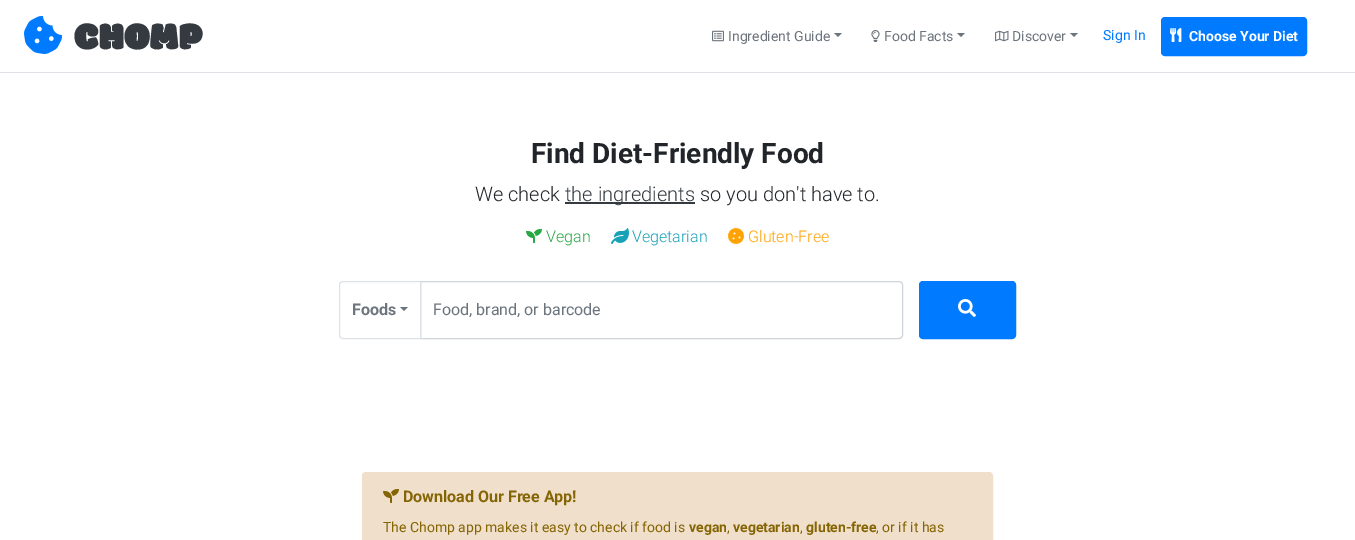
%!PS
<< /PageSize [1355 540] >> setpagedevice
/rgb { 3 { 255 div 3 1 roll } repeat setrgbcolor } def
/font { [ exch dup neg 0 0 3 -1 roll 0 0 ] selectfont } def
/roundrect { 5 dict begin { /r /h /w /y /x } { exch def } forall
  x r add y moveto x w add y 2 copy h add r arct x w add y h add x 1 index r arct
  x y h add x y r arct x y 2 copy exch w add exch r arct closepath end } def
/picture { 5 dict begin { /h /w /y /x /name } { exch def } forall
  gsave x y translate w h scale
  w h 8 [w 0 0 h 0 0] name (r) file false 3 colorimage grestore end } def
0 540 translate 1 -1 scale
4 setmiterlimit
255 255 255 rgb
0 0 1355 540 rectfill
222 226 230 rgb
0 72 1355 1 rectfill
(img/1.rgb) 24 16 38 38 picture
(img/2.rgb) 712 30 12 12 picture
108 117 125 rgb
834 33 moveto 842 33 lineto 838 37 lineto closepath fill
(img/3.rgb) 871 30 9 12 picture
957 33 moveto 965 33 lineto 961 37 lineto closepath fill
(img/4.rgb) 995 30 14 12 picture
1070 33 moveto 1078 33 lineto 1074 37 lineto closepath fill
0 123 255 rgb
1161.5 17.5 145 38 3.5 roundrect gsave fill grestore
stroke
(img/5.rgb) 1170 28 12 14 picture
52 58 64 rgb
565 202 130 2 rectfill
(img/6.rgb) 526 229 16 14 picture
(img/7.rgb) 611 228 18 16 picture
(img/8.rgb) 728 228 16 16 picture
206 212 218 rgb
420.5 281.5 moveto 899 281.5 lineto 901 281.5 902.5 283 902.5 285 curveto 902.5 335 lineto 902.5 337 901 338.5 899 338.5 curveto 420.5 338.5 lineto closepath stroke
222 226 230 rgb
343 281.5 moveto 420.5 281.5 lineto 420.5 338.5 lineto 343 338.5 lineto 341 338.5 339.5 337 339.5 335 curveto 339.5 285 lineto 339.5 283 341 281.5 343 281.5 curveto closepath stroke
108 117 125 rgb
400 307 moveto 408 307 lineto 404 311 lineto closepath fill
0 123 255 rgb
919.5 281.5 96 57 3.5 roundrect gsave fill grestore
stroke
(img/9.rgb) 958 299 18 18 picture
240 224 203 rgb
362.5 472.5 630 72 3.5 roundrect gsave fill grestore
stroke
(img/10.rgb) 383 489 16 14 picture
/Modak-Regular 40 font
52 58 64 rgb
74 49 moveto (CHOMP) show
/Roboto-Regular 14 font
108 117 125 rgb
[
  [(Ingredient Guide) 728 41]
  [(Food Facts) 884 41]
  [(Discover) 1012 41]
] { aload pop moveto show } forall
0 123 255 rgb
1103 40 moveto (Sign In) show
/Roboto-Bold 14 font
255 255 255 rgb
1189 41 moveto (Choose Your Diet) show
/Roboto-Bold 28 font
33 37 41 rgb
531 163 moveto (Find Diet-Friendly Food) show
/Roboto-Light 20 font
475 201 moveto (We check) show
52 58 64 rgb
565 201 moveto (the ingredients) show
33 37 41 rgb
700 201 moveto (so you don't have to.) show
/Roboto-Light 16 font
40 167 69 rgb
546 242 moveto (Vegan) show
23 162 184 rgb
632 242 moveto (Vegetarian) show
255 163 2 rgb
748 242 moveto (Gluten-Free) show
/Roboto-Bold 16 font
108 117 125 rgb
352 315 moveto (Foods) show
/Roboto-Regular 16 font
433 315 moveto (Food, brand, or barcode) show
/Roboto-Bold 16 font
133 100 4 rgb
403 502 moveto (Download Our Free App!) show
/Roboto-Regular 14 font
383 532 moveto (The Chomp app makes it easy to check if food is) show
/Roboto-Bold 14 font
689 532 moveto (vegan) show
/Roboto-Regular 14 font
727 532 moveto (,) show
/Roboto-Bold 14 font
733 532 moveto (vegetarian) show
/Roboto-Regular 14 font
800 532 moveto (,) show
/Roboto-Bold 14 font
806 532 moveto (gluten-free) show
/Roboto-Regular 14 font
876 532 moveto (, or if it has) show
showpage
